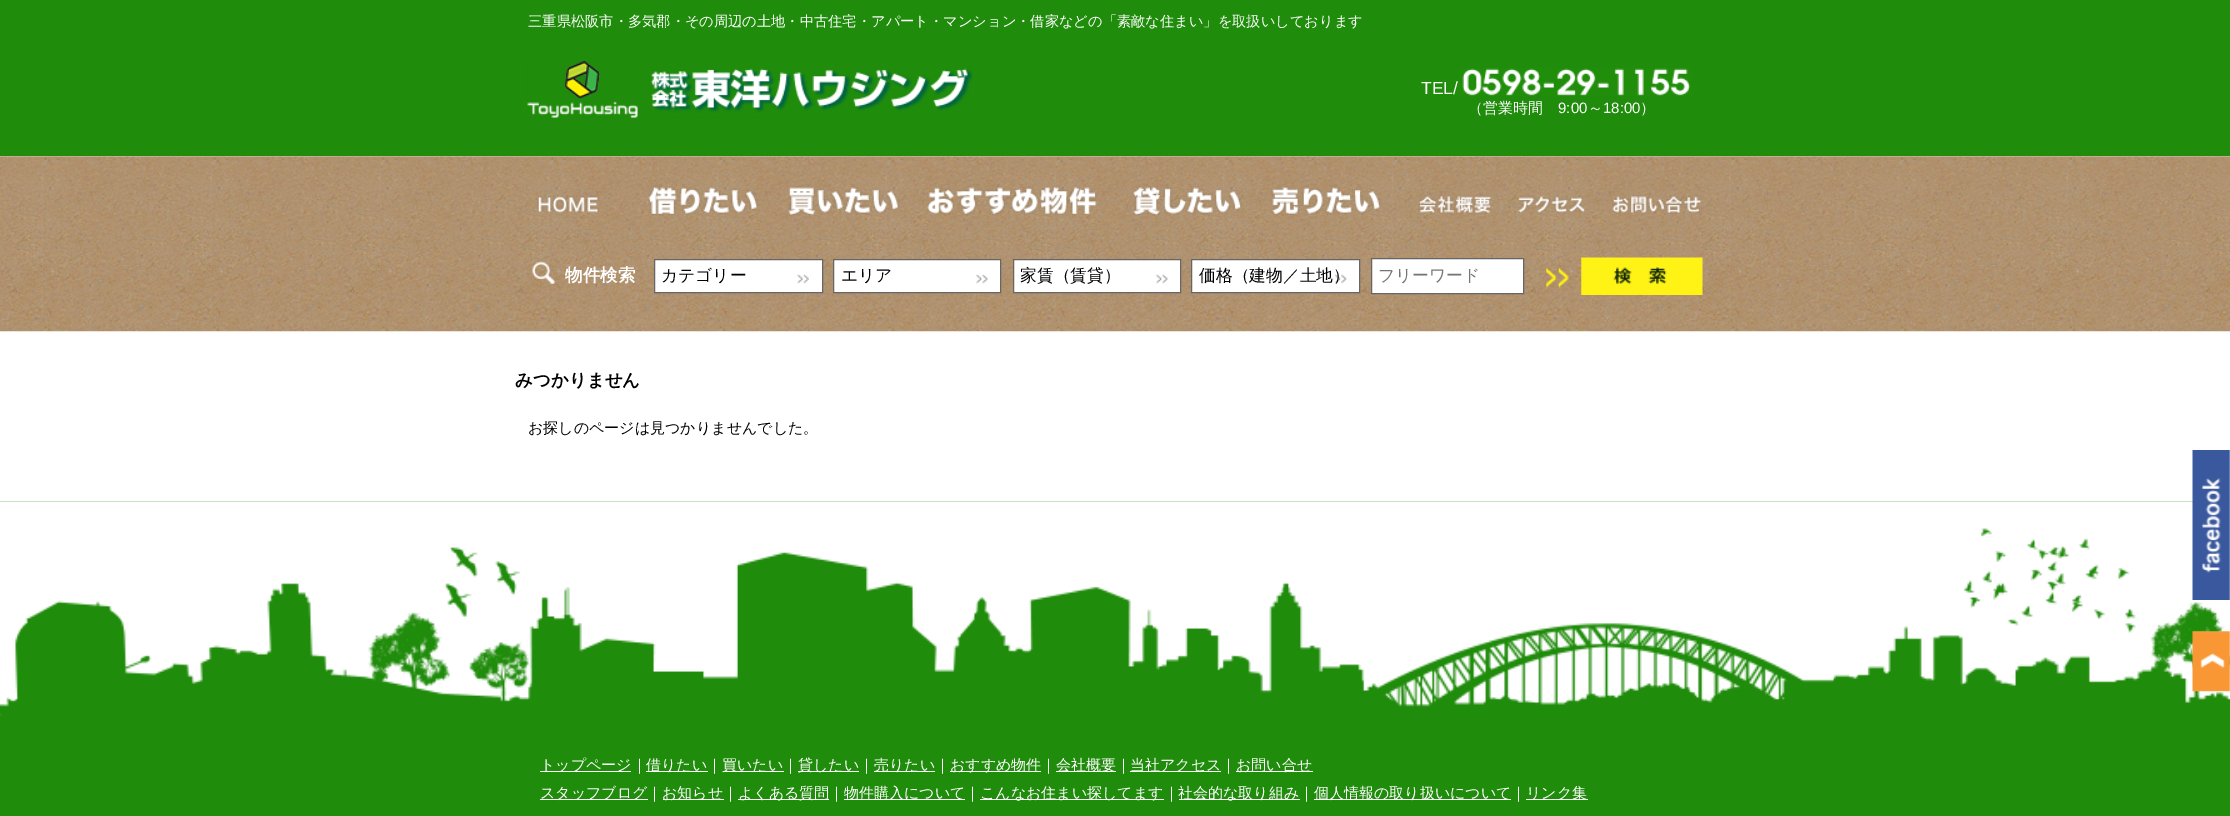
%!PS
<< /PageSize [2230 816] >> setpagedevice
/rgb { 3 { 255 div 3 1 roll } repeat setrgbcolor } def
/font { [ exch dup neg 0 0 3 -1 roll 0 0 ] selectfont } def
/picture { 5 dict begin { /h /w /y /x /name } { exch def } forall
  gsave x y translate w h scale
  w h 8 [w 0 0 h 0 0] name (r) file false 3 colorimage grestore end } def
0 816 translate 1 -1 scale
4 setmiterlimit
255 255 255 rgb
0 0 2230 816 rectfill
32 140 11 rgb
0 0 2230 156 rectfill
(img/1.rgb) 527 61 446 57 picture
(img/3.rgb) 0 156 2230 176 picture
(img/4.rgb) 537 195 62 19 picture
(img/5.rgb) 648 186 110 30 picture
(img/6.rgb) 788 186 111 30 picture
(img/7.rgb) 926 186 171 30 picture
(img/8.rgb) 1133 186 109 30 picture
(img/9.rgb) 1271 186 110 29 picture
(img/10.rgb) 1418 195 74 19 picture
(img/11.rgb) 1518 196 67 18 picture
(img/12.rgb) 1612 195 90 19 picture
(img/13.rgb) 532 261 24 23 picture
255 255 255 rgb
655 260 167 32 rectfill
(img/14.rgb) 797 274 12 10 picture
102 102 102 rgb
654.5 259.5 168 33 rectstroke
255 255 255 rgb
834 260 166 32 rectfill
(img/15.rgb) 976 274 12 10 picture
102 102 102 rgb
833.5 259.5 167 33 rectstroke
255 255 255 rgb
1014 260 166 32 rectfill
(img/15.rgb) 1156 274 12 10 picture
102 102 102 rgb
1013.5 259.5 167 33 rectstroke
255 255 255 rgb
1192 260 167 32 rectfill
(img/16.rgb) 1335 274 12 10 picture
102 102 102 rgb
1191.5 259.5 168 33 rectstroke
255 255 255 rgb
1371.5 258.5 moveto 1523.5 258.5 lineto 1523.5 293.5 lineto 1371.5 293.5 lineto closepath gsave fill grestore
102 102 102 rgb
stroke
(img/17.rgb) 1546 267 23 21 picture
(img/18.rgb) 1581 257 122 38 picture
32 140 11 rgb
0 501 2230 315 rectfill
(img/21.rgb) 0 501 2230 215 picture
(img/19.rgb) 2192 450 38 150 picture
(img/20.rgb) 2192 631 38 61 picture
[
  [540 771 91 1 255 255 255]
  [646 771 62 1 255 255 255]
  [723 771 61 1 255 255 255]
  [798 771 61 1 255 255 255]
  [874 771 61 1 255 255 255]
  [950 771 91 1 255 255 255]
  [1056 771 60 1 255 255 255]
  [1130 771 91 1 255 255 255]
  [1236 771 77 1 255 255 255]
  [540 799 108 1 255 255 255]
  [663 799 61 1 255 255 255]
  [738 799 91 1 255 255 255]
  [844 799 121 1 255 255 255]
  [980 799 184 1 255 255 255]
  [1179 799 121 1 255 255 255]
  [1314 799 197 1 255 255 255]
  [1526 799 62 1 255 255 255]
] { aload pop rgb rectfill } forall
/WenQuanYiZenHei-Medium 14.25 font
528 26 moveto (三重県松阪市・多気郡・その周辺の土地・中古住宅・アパート・マンション・借家などの「素敵な住まい」を取扱いしております) show
/LiberationSans-Regular 17.5 font
1421 94 moveto (TEL/) show
(img/2.rgb) 1458 68 233 28 picture
/WenQuanYiZenHei-Medium 15 font
1468 113 moveto (（営業時間) show
/LiberationSans-Regular 15 font
1558 113 moveto (9:00) show
/WenQuanYiZenHei-Medium 15 font
1588 113 moveto (～) show
/LiberationSans-Regular 15 font
1603 113 moveto (18:00) show
/WenQuanYiZenHei-Medium 15 font
1640 113 moveto (）) show
/WenQuanYiZenHei-Bold 17.5 font
565 281 moveto (物件検索) show
/WenQuanYiZenHei-Medium 16.75 font
0 0 0 rgb
[
  [(カテゴリー) 661 281]
  [(エリア) 841 281]
  [(家賃（賃貸）) 1020 281]
  [(価格（建物／土地）) 1199 281]
] { aload pop moveto show } forall
117 117 117 rgb
1378 281 moveto (フリーワード) show
/WenQuanYiZenHei-Bold 17.5 font
0 0 0 rgb
515 386 moveto (みつかりません) show
/WenQuanYiZenHei-Medium 15 font
528 433 moveto (お探しのページは見つかりませんでした。) show
255 255 255 rgb
[
  [(トップページ｜) 540 770]
  [(借りたい｜) 646 770]
  [(買いたい｜) 722 770]
  [(貸したい｜) 798 770]
  [(売りたい｜) 874 770]
  [(おすすめ物件｜) 950 770]
  [(会社概要｜) 1056 770]
  [(当社アクセス｜) 1130 770]
  [(お問い合せ) 1236 770]
  [(スタッフブログ｜) 540 798]
  [(お知らせ｜) 662 798]
  [(よくある質問｜) 738 798]
  [(物件購入について｜) 844 798]
  [(こんなお住まい探してます｜) 980 798]
  [(社会的な取り組み｜) 1178 798]
  [(個人情報の取り扱いについて｜) 1314 798]
  [(リンク集) 1526 798]
] { aload pop moveto show } forall
showpage
